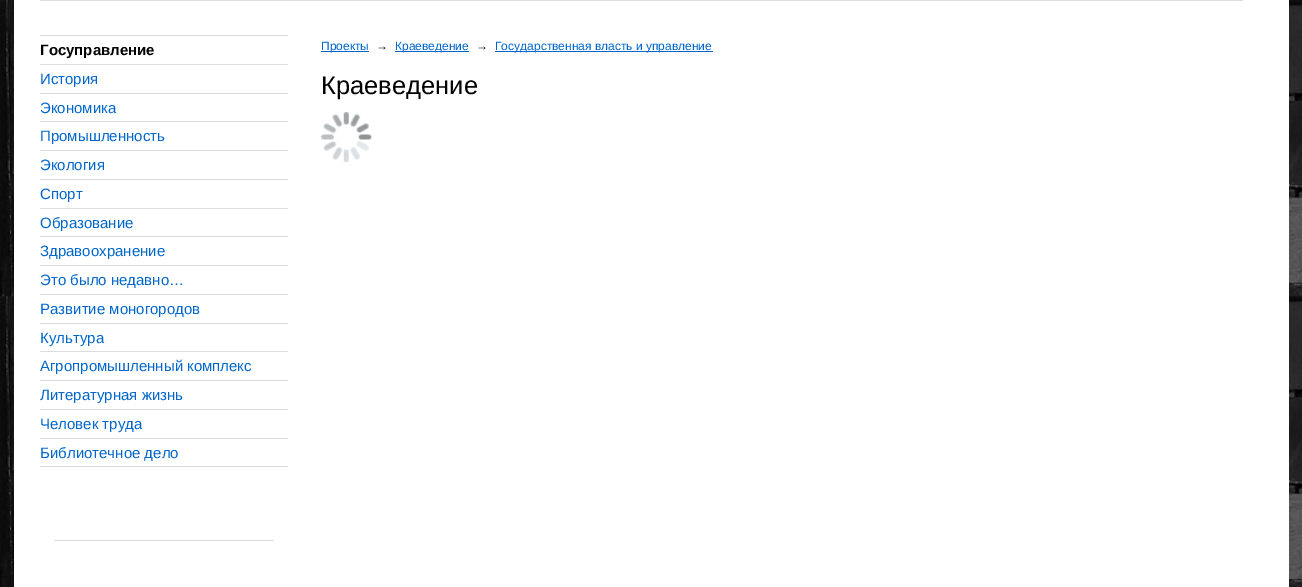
%!PS
<< /PageSize [1302 587] >> setpagedevice
/rgb { 3 { 255 div 3 1 roll } repeat setrgbcolor } def
/font { [ exch dup neg 0 0 3 -1 roll 0 0 ] selectfont } def
/picture { 5 dict begin { /h /w /y /x /name } { exch def } forall
  gsave x y translate w h scale
  w h 8 [w 0 0 h 0 0] name (r) file false 3 colorimage grestore end } def
0 587 translate 1 -1 scale
4 setmiterlimit
255 255 255 rgb
0 0 1302 587 rectfill
(img/1.rgb) 0 0 1302 587 picture
[
  [14 0 1275 587 255 255 255]
  [40 0 1203 1 220 220 220]
  [40 35 248 1 220 220 220]
  [40 64 248 1 220 220 220]
  [40 93 248 1 220 220 220]
  [40 121 248 1 220 220 220]
  [40 150 248 1 220 220 220]
  [40 179 248 1 220 220 220]
  [40 208 248 1 220 220 220]
  [40 236 248 1 220 220 220]
  [40 265 248 1 220 220 220]
  [40 294 248 1 220 220 220]
  [40 323 248 1 220 220 220]
  [40 351 248 1 220 220 220]
  [40 380 248 1 220 220 220]
  [40 409 248 1 220 220 220]
  [40 438 248 1 220 220 220]
  [40 466 248 1 220 220 220]
  [54 540 220 1 220 220 220]
  [321 51 48 1 0 102 204]
  [395 51 74 1 0 102 204]
  [495 51 218 1 0 102 204]
] { aload pop rgb rectfill } forall
(img/2.rgb) 321 112 51 50 picture
/LiberationSans-Bold 15 font
0 0 0 rgb
40 55 moveto (Госуправление) show
/LiberationSans-Regular 15 font
0 102 204 rgb
[
  [(История) 40 84]
  [(Экономика) 40 113]
  [(Промышленность) 40 141]
  [(Экология) 40 170]
  [(Cпорт) 40 199]
  [(Образование) 40 228]
  [(Здравоохранение) 40 256]
  [(Это было недавно…) 40 285]
  [(Развитие моногородов) 40 314]
  [(Культура) 40 343]
  [(Агропромышленный комплекс) 40 371]
  [(Литературная жизнь) 40 400]
  [(Человек труда) 40 429]
  [(Библиотечное дело) 40 458]
] { aload pop moveto show } forall
/LiberationSans-Regular 12 font
321 50 moveto (Проекты) show
0 0 0 rgb
376 50 moveto (→) show
0 102 204 rgb
395 50 moveto (Краеведение) show
0 0 0 rgb
476 50 moveto (→) show
0 102 204 rgb
495 50 moveto (Государственная власть и управление) show
/LiberationSans-Regular 25.5 font
0 0 0 rgb
321 94 moveto (Краеведение) show
showpage
